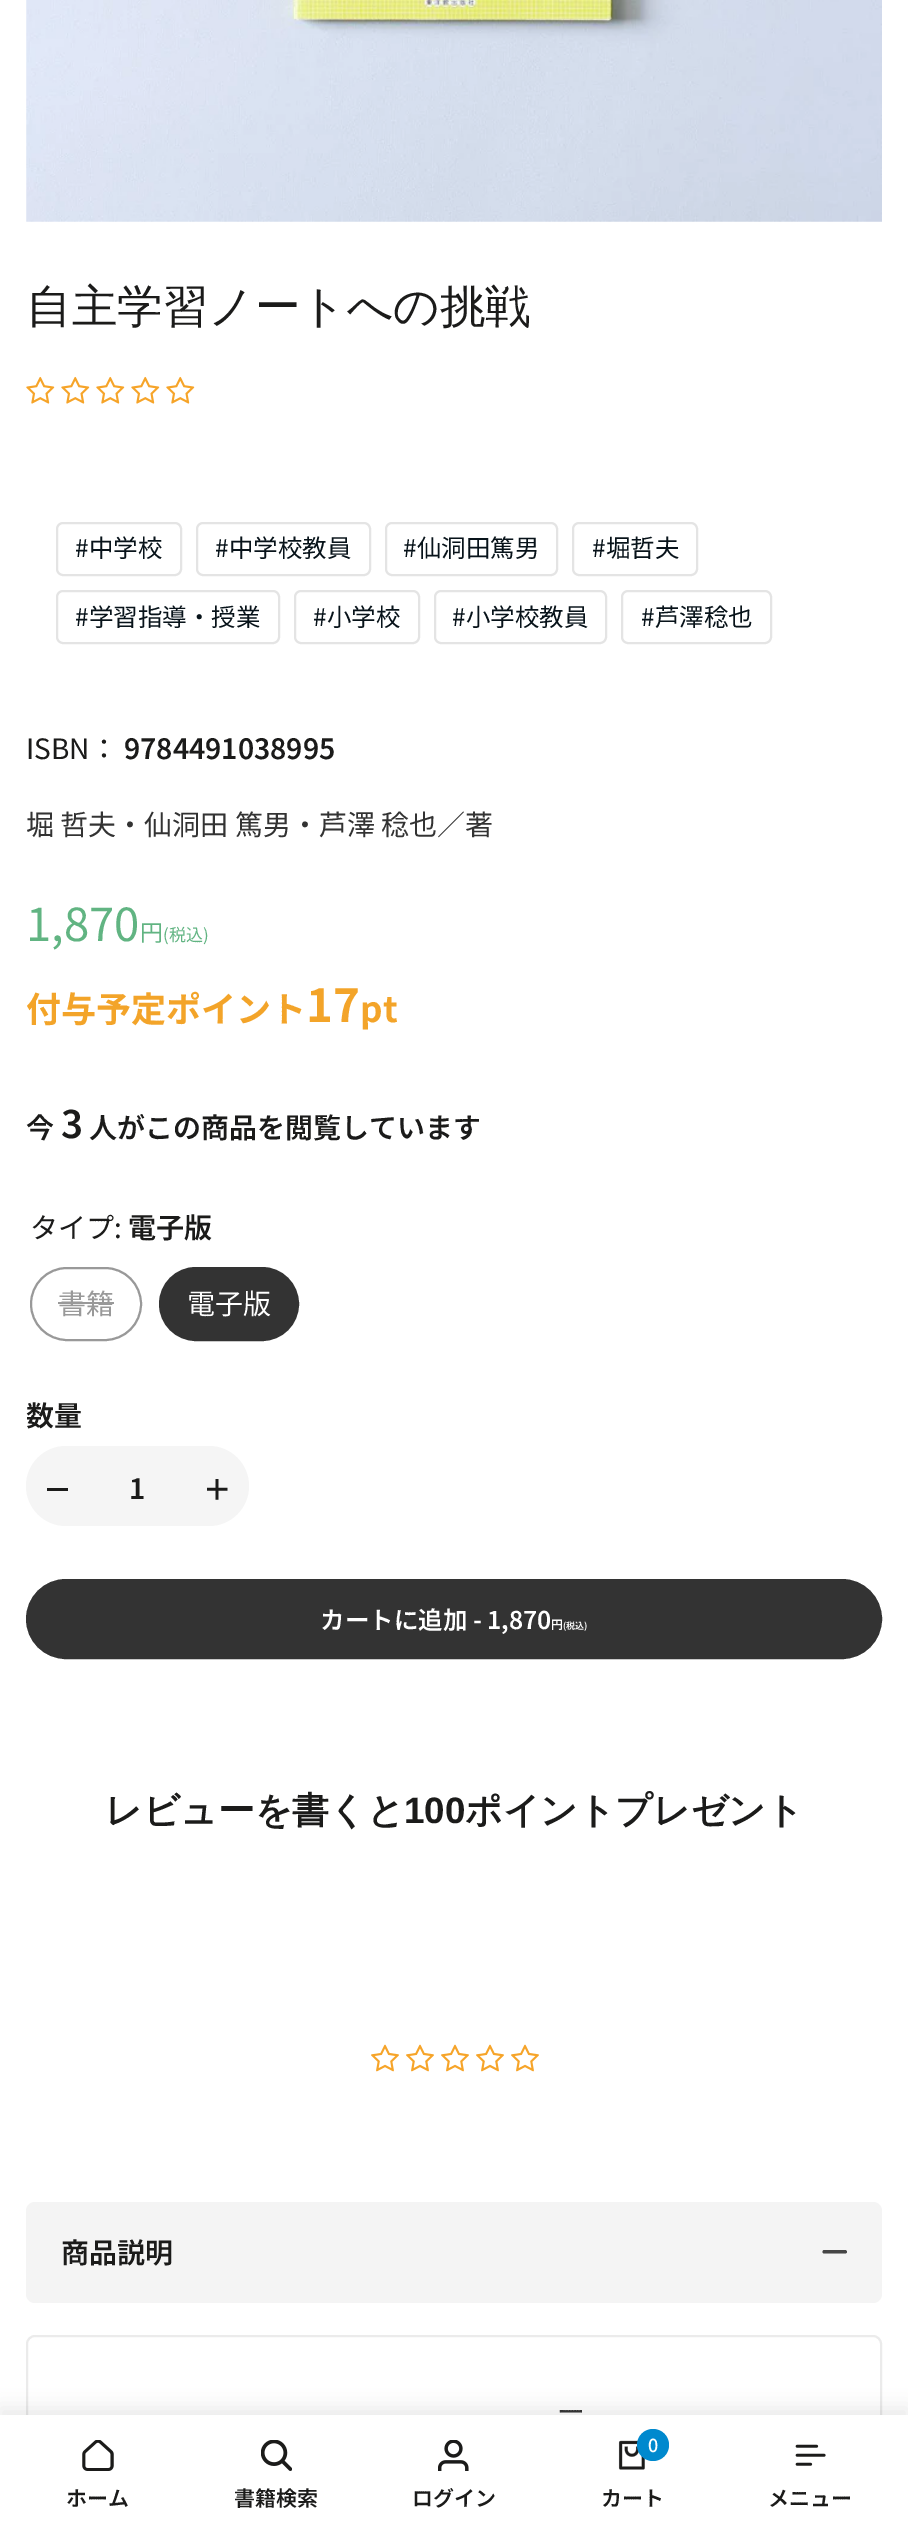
%!PS
<< /PageSize [908 2532] /PageUsesTransparency true >> setpagedevice
/rgb { 3 { 255 div 3 1 roll } repeat setrgbcolor } def
/font { [ exch dup neg 0 0 3 -1 roll 0 0 ] selectfont } def
/alpha { dup .setfillconstantalpha .setstrokeconstantalpha } def
/circle { newpath 0 360 arc closepath } def
/roundrect { 5 dict begin { /r /h /w /y /x } { exch def } forall
  x r add y moveto x w add y 2 copy h add r arct x w add y h add x 1 index r arct
  x y h add x y r arct x y 2 copy exch w add exch r arct closepath end } def
/shadow { 12 dict begin { /a /b /q /h /w /y /x } { exch def } forall gsave /was 0 def
  9 -2 -9 { dup b mul 4 div /e exch def 1 sub .425 mul 2.718 exch exp 1 add a .99 .min exch div /now exch def
    1 1 now sub 1 was sub div sub alpha /was now def
    w h .min e 2 mul add 0 gt { x e sub y e sub w e 2 mul add h e 2 mul add
      q e add b .6 mul add w h .min 2 div e add .min 0 .max roundrect fill } if } for grestore end } def
/picture { 5 dict begin { /h /w /y /x /name } { exch def } forall
  gsave x y translate w h scale
  w h 8 [w 0 0 h 0 0] name (r) file false 3 colorimage grestore end } def
0 .pushpdf14devicefilter
0 2532 translate 1 -1 scale
4 setmiterlimit
255 255 255 rgb
0 0 908 2532 rectfill
(img/1.rgb) 26 0 856 222 picture
(img/2.rgb) 26 376 29 28 picture
(img/2.rgb) 61 376 29 28 picture
(img/2.rgb) 96 376 29 28 picture
(img/2.rgb) 131 376 29 28 picture
(img/2.rgb) 166 376 29 28 picture
228 228 228 rgb
2 setlinewidth
57 523 124 52 6 roundrect stroke
197 523 173 52 6 roundrect stroke
386 523 171 52 6 roundrect stroke
573 523 124 52 6 roundrect stroke
57 591 222 52 6 roundrect stroke
295 591 124 52 6 roundrect stroke
435 591 171 52 6 roundrect stroke
622 591 149 52 6 roundrect stroke
153 153 153 rgb
31 1268 110 72 36 roundrect stroke
58 1302 56 2 rectfill
51 51 51 rgb
160 1268 138 72 36 roundrect gsave fill grestore
stroke
245 245 245 rgb
26 1446 223 80 40 roundrect fill
27 27 26 rgb
47 1488 21 3 rectfill
(img/3.rgb) 207 1479 21 21 picture
51 51 51 rgb
27 1580 854 78 39 roundrect gsave fill grestore
stroke
(img/4.rgb) 371 2044 28 28 picture
(img/4.rgb) 406 2044 28 28 picture
(img/4.rgb) 441 2044 28 28 picture
(img/4.rgb) 476 2044 28 28 picture
(img/4.rgb) 511 2044 28 28 picture
244 244 244 rgb
26 2202 856 101 9 roundrect fill
70 70 70 rgb
847 2252 moveto 847 2252.5 846 2253.5 845 2253.5 curveto 824 2253.5 lineto 823.5 2253.5 822.5 2252.5 822.5 2252 curveto 822.5 2251 823.5 2250 824 2250 curveto 845 2250 lineto 846 2250 847 2251 847 2252 curveto closepath fill
235 235 235 rgb
27 2336 854 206 8 roundrect stroke
0 0 0 rgb
0 2408 908 117 0 9 0.08 shadow
255 255 255 rgb
0 2415 908 117 rectfill
(img/5.rgb) 82 2440 32 31 picture
(img/6.rgb) 261 2440 31 31 picture
(img/7.rgb) 438 2440 31 31 picture
(img/8.rgb) 618 2440 27 30 picture
0 137 206 rgb
653 2445 16 circle fill
(img/9.rgb) 795 2444 31 22 picture
/WenQuanYiZenHei-Medium 45.5 font
27 27 26 rgb
26 322 moveto (自主学習ノートへの挑戦) show
/NotoSansJP-Regular 24.5 font
8 19 26 rgb
[
  [(#中学校) 75 557]
  [(#中学校教員) 215 557]
  [(#仙洞田篤男) 403 557]
  [(#堀哲夫) 592 557]
  [(#学習指導・授業) 75 626]
  [(#小学校) 313 626]
  [(#小学校教員) 452 626]
  [(#芦澤稔也) 641 626]
] { aload pop moveto show } forall
/NotoSansJP-Regular 28 font
27 27 26 rgb
26 759 moveto (ISBN：) show
/NotoSansJP-SemiBold 28 font
124 759 moveto (9784491038995) show
/NotoSansJP-Regular 28 font
51 51 51 rgb
26 835 moveto (堀 哲夫・仙洞田 篤男・芦澤 稔也／著) show
/NotoSansJP-Regular 45.5 font
97 180 130 rgb
26 941 moveto (1,870) show
/NotoSansJP-Regular 23 font
140 941 moveto (円) show
/NotoSansJP-Regular 17 font
163 941 moveto (\(税込\)) show
/NotoSansJP-Bold 35 font
243 164 41 rgb
26 1022 moveto (付与予定ポイント) show
/NotoSansJP-Bold 45.5 font
306 1022 moveto (17) show
/NotoSansJP-Bold 35 font
360 1022 moveto (pt) show
/NotoSansJP-SemiBold 28 font
27 27 26 rgb
26 1138 moveto (今) show
/NotoSansJP-SemiBold 38 font
61 1138 moveto (3) show
/NotoSansJP-SemiBold 28 font
89 1138 moveto (人がこの商品を閲覧しています) show
/NotoSansJP-Regular 28 font
30 1238 moveto (タイプ:) show
/NotoSansJP-SemiBold 28 font
128 1238 moveto (電子版) show
/NotoSansJP-Regular 28 font
153 153 153 rgb
58 1314 moveto (書籍) show
255 255 255 rgb
187 1314 moveto (電子版) show
/NotoSansJP-SemiBold 28 font
27 27 26 rgb
26 1426 moveto (数量) show
129 1499 moveto (1) show
/NotoSansJP-SemiBold 24.5 font
255 255 255 rgb
320 1629 moveto (カートに追加 - 1,870) show
/NotoSansJP-SemiBold 12 font
551 1629 moveto (円) show
/NotoSansJP-SemiBold 9 font
563 1629 moveto (\(税込\)) show
/WenQuanYiZenHei-Bold 36.75 font
27 27 26 rgb
105 1823 moveto (レビューを書くと) show
/LiberationSans-Bold 36.75 font
404 1823 moveto (100) show
/WenQuanYiZenHei-Bold 36.75 font
465 1823 moveto (ポイントプレゼント) show
/NotoSansJP-SemiBold 28 font
61 2263 moveto (商品説明) show
/NotoSansJP-Regular 28 font
51 51 51 rgb
557 2422 moveto (ー) show
/NotoSansJP-SemiBold 21 font
27 27 26 rgb
[
  [(ホーム) 66 2506]
  [(書籍検索) 234 2506]
  [(ログイン) 412 2506]
] { aload pop moveto show } forall
/NotoSansJP-Medium 18 font
255 255 255 rgb
648 2452 moveto (0) show
/NotoSansJP-SemiBold 21 font
27 27 26 rgb
601 2506 moveto (カート) show
768 2506 moveto (メニュー) show
.poppdf14devicefilter showpage
